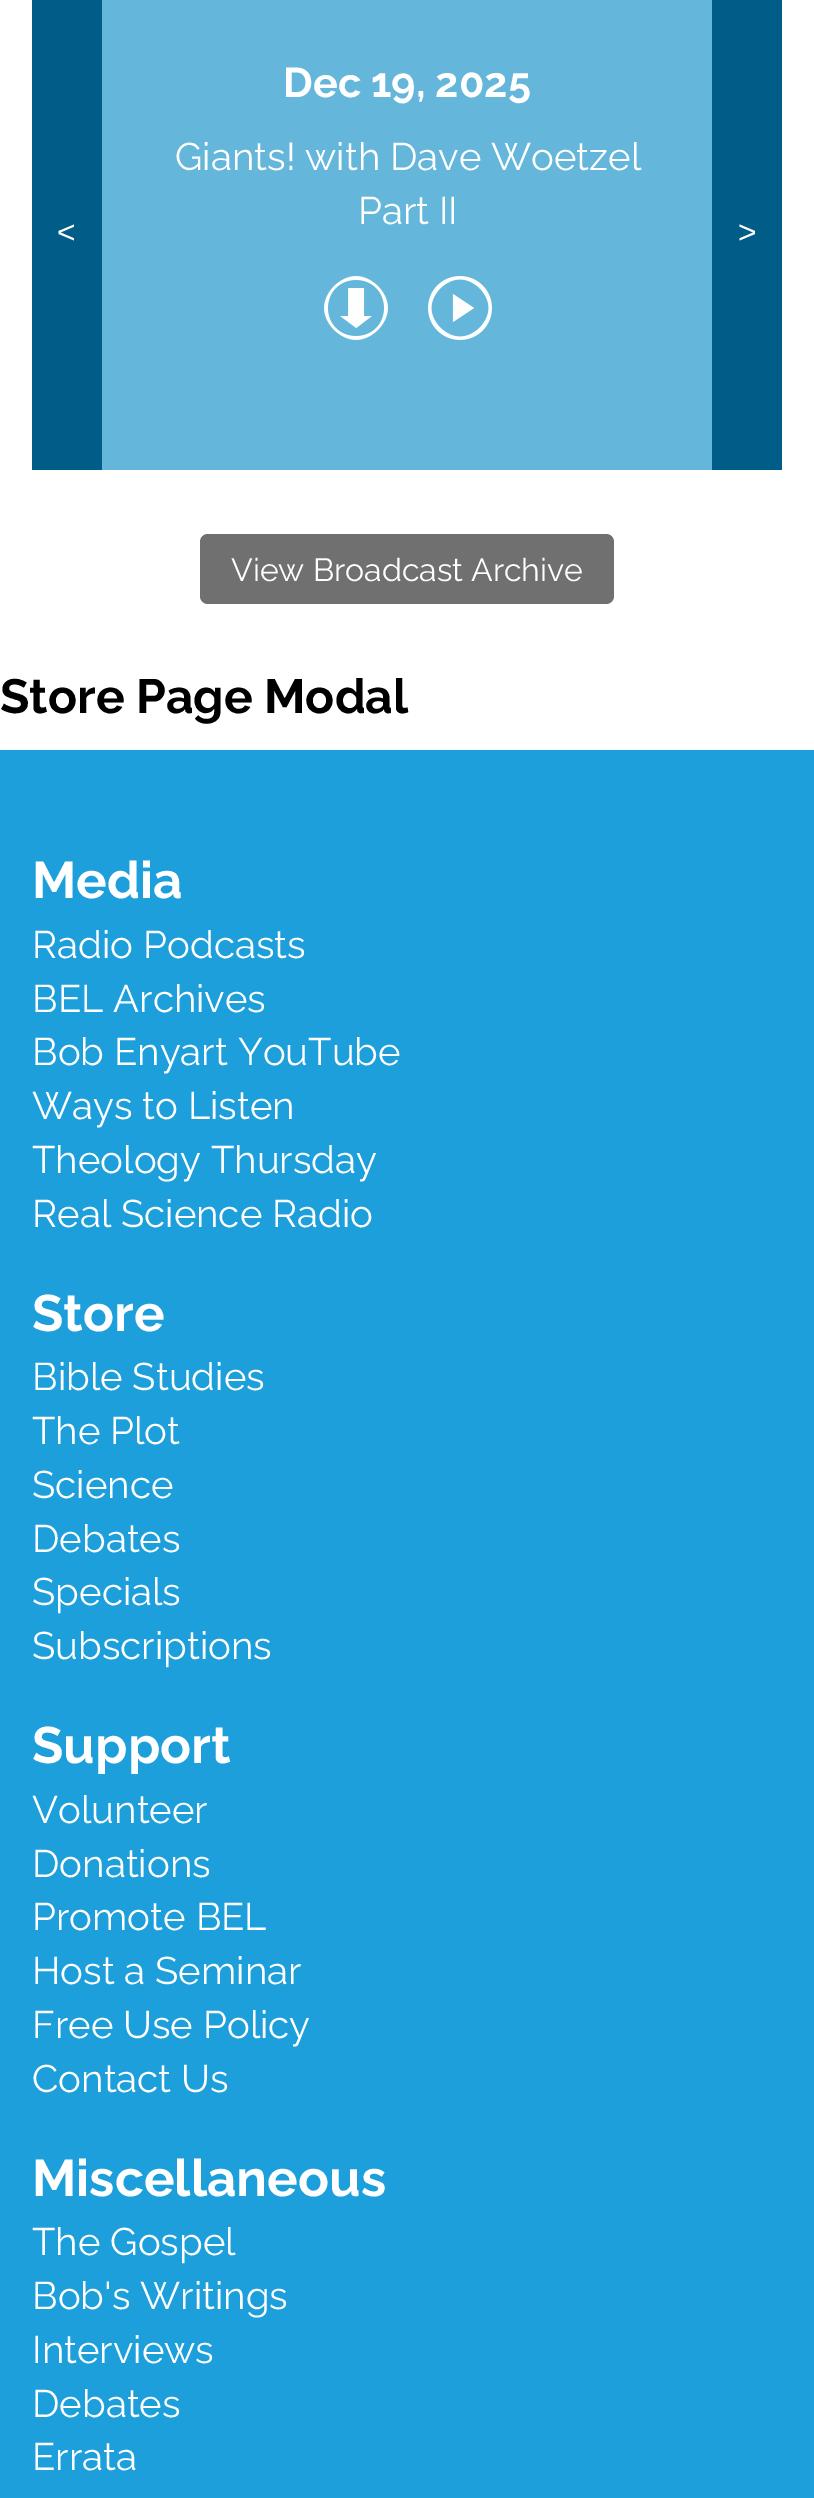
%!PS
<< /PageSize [814 2498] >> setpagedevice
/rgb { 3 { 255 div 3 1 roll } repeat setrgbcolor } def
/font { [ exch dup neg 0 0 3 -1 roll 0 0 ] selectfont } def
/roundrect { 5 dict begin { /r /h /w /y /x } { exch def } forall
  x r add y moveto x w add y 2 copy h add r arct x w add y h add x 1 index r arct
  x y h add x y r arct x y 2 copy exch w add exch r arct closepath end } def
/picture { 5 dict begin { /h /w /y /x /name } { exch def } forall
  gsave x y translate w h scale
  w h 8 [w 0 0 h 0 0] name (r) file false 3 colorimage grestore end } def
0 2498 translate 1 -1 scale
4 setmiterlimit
255 255 255 rgb
0 0 814 2498 rectfill
100 182 219 rgb
102 0 610 470 rectfill
(img/1.rgb) 324 276 64 64 picture
(img/2.rgb) 428 276 64 64 picture
0 93 135 rgb
32 0 70 470 rectfill
712 0 70 470 rectfill
112 112 112 rgb
200 534 414 70 8 roundrect fill
29 159 219 rgb
0 750 814 1748 rectfill
/Raleway-Bold 41.5 font
255 255 255 rgb
283 97 moveto (Dec 19, 2025) show
/Raleway-Regular 38.4 font
175 170 moveto (Giants! with Dave Woetzel) show
358 224 moveto (Part II) show
/LiberationSans-Regular 32 font
57 243 moveto (<) show
738 243 moveto (>) show
/Raleway-Regular 32 font
231 581 moveto (View Broadcast Archive) show
/Raleway-Bold 48 font
0 0 0 rgb
0 713 moveto (Store Page Modal) show
/Raleway-Bold 51.25 font
255 255 255 rgb
32 898 moveto (Media) show
/Raleway-Regular 38.4 font
[
  [(Radio Podcasts) 32 958]
  [(BEL Archives) 32 1012]
  [(Bob Enyart YouTube) 32 1065]
  [(Ways to Listen) 32 1119]
  [(Theology Thursday) 32 1173]
  [(Real Science Radio) 32 1227]
] { aload pop moveto show } forall
/Raleway-Bold 51.25 font
32 1331 moveto (Store) show
/Raleway-Regular 38.4 font
[
  [(Bible Studies) 32 1390]
  [(The Plot) 32 1444]
  [(Science) 32 1498]
  [(Debates) 32 1552]
  [(Specials) 32 1605]
  [(Subscriptions) 32 1659]
] { aload pop moveto show } forall
/Raleway-Bold 51.25 font
32 1763 moveto (Support) show
/Raleway-Regular 38.4 font
[
  [(Volunteer) 32 1823]
  [(Donations) 32 1877]
  [(Promote BEL) 32 1930]
  [(Host a Seminar) 32 1984]
  [(Free Use Policy) 32 2038]
  [(Contact Us) 32 2092]
] { aload pop moveto show } forall
/Raleway-Bold 51.25 font
32 2196 moveto (Miscellaneous) show
/Raleway-Regular 38.4 font
[
  [(The Gospel) 32 2255]
  [(Bob's Writings) 32 2309]
  [(Interviews) 32 2363]
  [(Debates) 32 2417]
  [(Errata) 32 2470]
] { aload pop moveto show } forall
showpage
